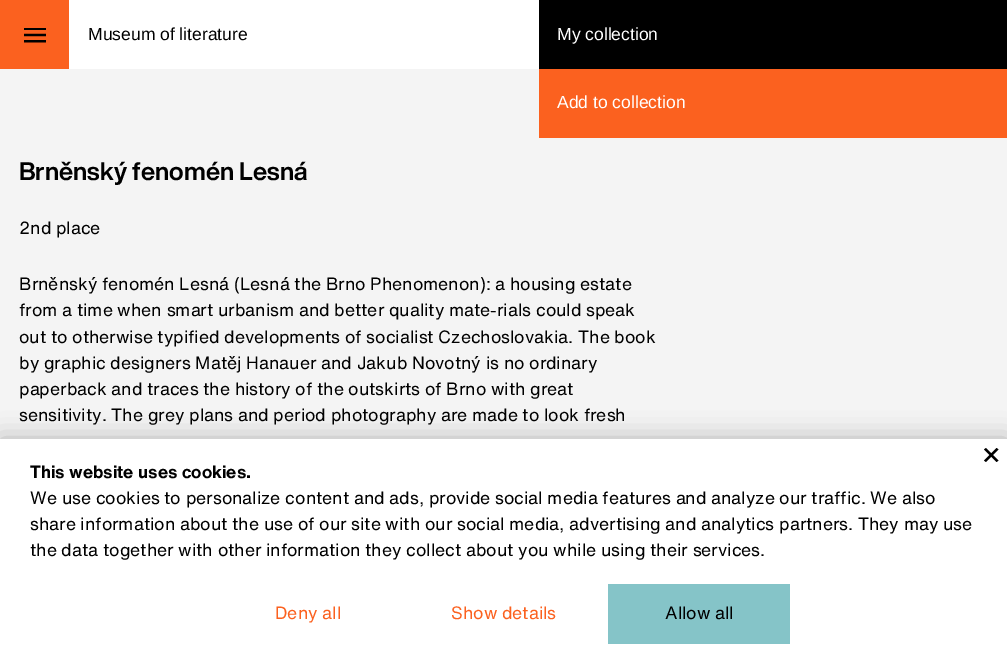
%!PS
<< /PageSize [1007 663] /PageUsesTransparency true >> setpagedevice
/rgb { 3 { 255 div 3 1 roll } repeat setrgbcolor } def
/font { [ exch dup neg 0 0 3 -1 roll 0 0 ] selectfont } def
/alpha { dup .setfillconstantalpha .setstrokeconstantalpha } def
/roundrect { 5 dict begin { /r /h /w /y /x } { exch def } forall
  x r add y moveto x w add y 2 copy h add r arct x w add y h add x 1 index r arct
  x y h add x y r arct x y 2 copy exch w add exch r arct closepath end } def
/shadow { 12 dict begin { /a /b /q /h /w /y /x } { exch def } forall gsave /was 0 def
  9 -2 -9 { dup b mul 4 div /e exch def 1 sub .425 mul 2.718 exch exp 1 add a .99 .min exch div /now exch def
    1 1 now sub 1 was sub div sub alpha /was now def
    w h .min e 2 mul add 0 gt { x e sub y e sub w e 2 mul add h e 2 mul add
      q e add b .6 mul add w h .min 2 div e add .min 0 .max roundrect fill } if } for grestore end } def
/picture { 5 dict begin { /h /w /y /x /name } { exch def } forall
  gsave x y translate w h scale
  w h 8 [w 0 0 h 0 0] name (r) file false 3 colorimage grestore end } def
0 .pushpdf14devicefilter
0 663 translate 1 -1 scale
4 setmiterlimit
255 255 255 rgb
0 0 1007 663 rectfill
251 97 31 rgb
0 0 69 69 rectfill
(img/1.rgb) 24 28 22 15 picture
[
  [539 0 468 69 0 0 0]
  [0 69 1007 370 244 244 244]
  [539 69 468 69 251 97 31]
] { aload pop rgb rectfill } forall
0 0 0 rgb
0 439 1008 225 0 12.5 0.27 shadow
255 255 255 rgb
0 439 1007 224 rectfill
0 0 0 rgb
984 460.5 moveto 996.5 448 lineto 998.5 449.5 lineto 986 462 lineto closepath fill
986 448 moveto 998.5 460.5 lineto 996.5 462 lineto 984 449.5 lineto closepath fill
133 196 200 rgb
608 584 182 60 rectfill
/LiberationSans-Regular 17.5 font
0 0 0 rgb
88 40 moveto (Museum of literature) show
255 255 255 rgb
557 40 moveto (My collection) show
557 108 moveto (Add to collection) show
/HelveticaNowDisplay-Bold 25 font
0 0 0 rgb
19 180 moveto (Brněnský fenomén Lesná) show
/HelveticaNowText-Regular 17.5 font
[
  [(2nd place) 19 234]
  [(Brněnský fenomén Lesná \(Lesná the Brno Phenomenon\): a housing estate) 19 290]
  [(from a time when smart urbanism and better quality mate-rials could speak) 19 316]
  [(out to otherwise typified developments of socialist Czechoslovakia. The book) 19 343]
  [(by graphic designers Matěj Hanauer and Jakub Novotný is no ordinary) 19 369]
  [(paperback and traces the history of the outskirts of Brno with great) 19 395]
  [(sensitivity. The grey plans and period photography are made to look fresh) 19 421]
] { aload pop moveto show } forall
/HelveticaNowText-Bold 17.5 font
30 478 moveto (This website uses cookies.) show
/HelveticaNowText-Regular 17.5 font
[
  [(We use cookies to personalize content and ads, provide social media features and analyze our traffic. We also) 30 504]
  [(share information about the use of our site with our social media, advertising and analytics partners. They may use) 30 530]
  [(the data together with other information they collect about you while using their services.) 30 556]
] { aload pop moveto show } forall
251 97 31 rgb
275 619 moveto (Deny all) show
451 619 moveto (Show details) show
0 0 0 rgb
665 619 moveto (Allow all) show
.poppdf14devicefilter showpage
